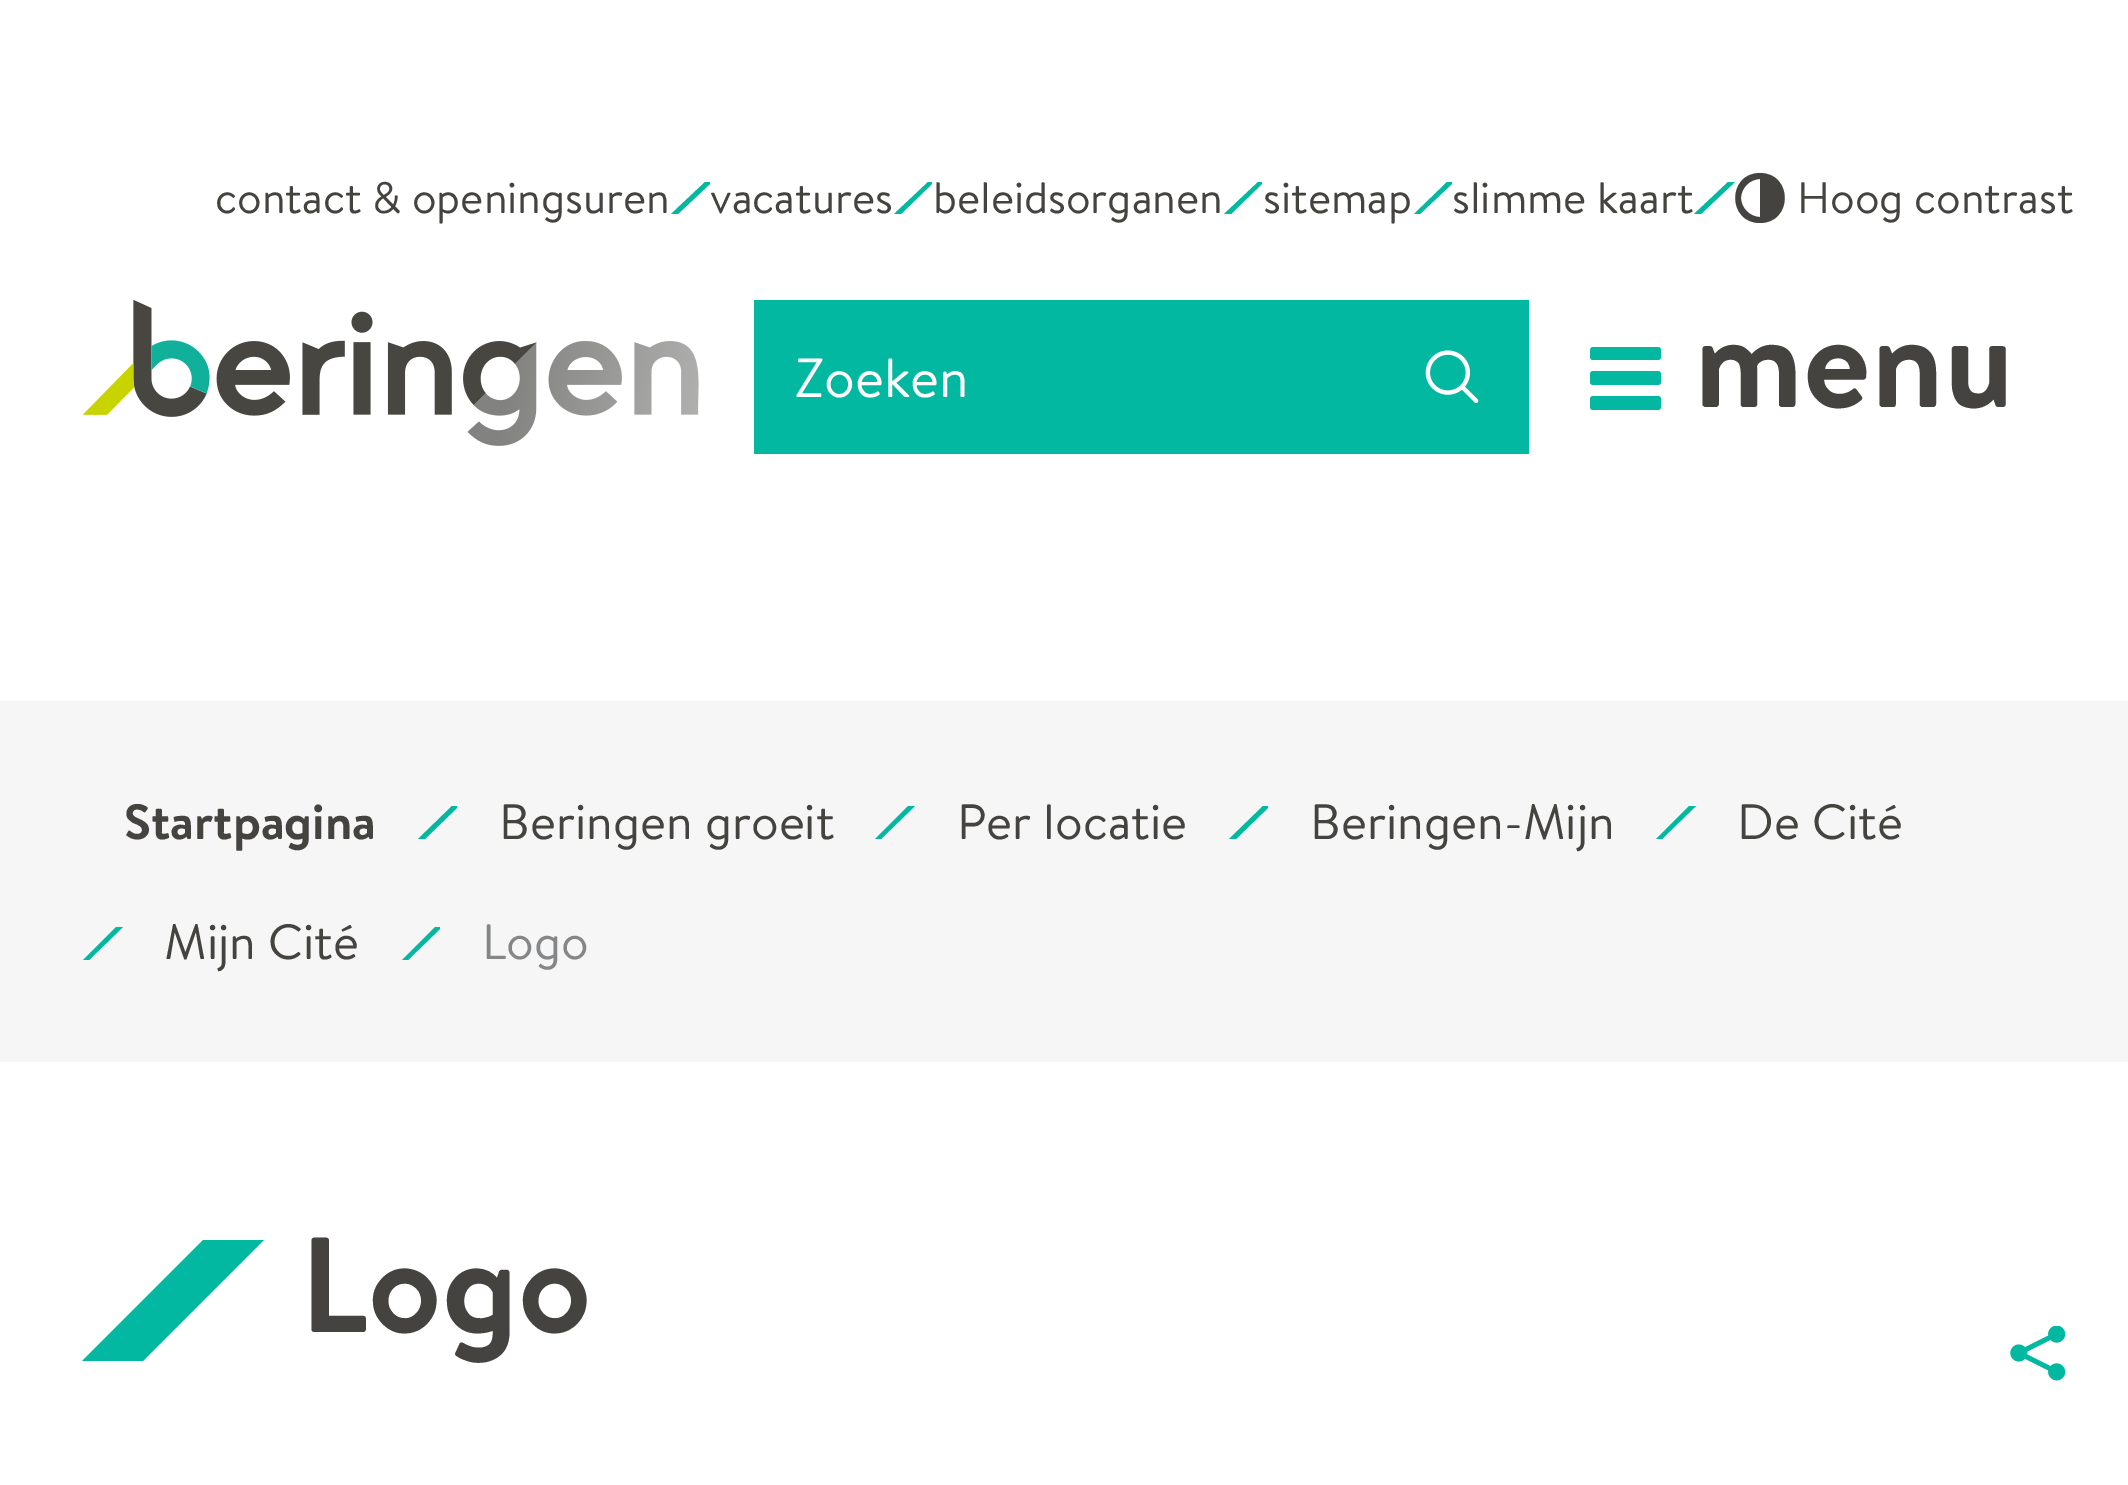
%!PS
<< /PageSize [2128 1485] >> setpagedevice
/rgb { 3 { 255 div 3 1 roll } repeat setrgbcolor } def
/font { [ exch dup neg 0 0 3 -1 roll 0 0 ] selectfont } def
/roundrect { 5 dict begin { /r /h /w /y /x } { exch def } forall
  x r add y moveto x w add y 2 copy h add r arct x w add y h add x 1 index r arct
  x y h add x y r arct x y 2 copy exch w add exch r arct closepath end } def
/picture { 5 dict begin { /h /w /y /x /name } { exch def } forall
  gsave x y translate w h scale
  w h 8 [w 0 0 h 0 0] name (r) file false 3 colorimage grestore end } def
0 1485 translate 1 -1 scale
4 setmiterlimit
255 255 255 rgb
0 0 2128 1485 rectfill
gsave
671 182 39 33 rectclip
2 184 160 rgb
705 182 moveto 671 214 lineto 678 214 lineto 712 182 lineto closepath fill
grestore
gsave
894 182 38 33 rectclip
2 184 160 rgb
928 182 moveto 894 214 lineto 901 214 lineto 934 182 lineto closepath fill
grestore
gsave
1224 182 38 33 rectclip
2 184 160 rgb
1258 182 moveto 1224 214 lineto 1231 214 lineto 1264 182 lineto closepath fill
grestore
gsave
1414 182 38 33 rectclip
2 184 160 rgb
1447 182 moveto 1414 214 lineto 1420 214 lineto 1454 182 lineto closepath fill
grestore
2 184 160 rgb
1728 182 moveto 1694 214 lineto 1701 214 lineto 1735 182 lineto closepath fill
69 67 63 rgb
1760 173 moveto 1727 173 1727 223 1760 223 curveto 1793 223 1793 173 1760 173 curveto closepath 1741 198 moveto 1741 188 1750 179 1760 179 curveto 1760 217 lineto 1750 217 1741 208 1741 198 curveto closepath fill
(img/1.rgb) 83 300 616 146 picture
2 184 160 rgb
754 300 775 154 rectfill
(img/2.rgb) 1425 350 54 53 picture
1590 371 71 14 3 roundrect fill
1590 347 71 13 3 roundrect fill
1590 396 71 14 3 roundrect fill
246 246 246 rgb
0 701 2128 361 rectfill
gsave
418 806 39 33 rectclip
2 184 160 rgb
452 806 moveto 418 839 lineto 425 839 lineto 459 806 lineto closepath fill
grestore
2 184 160 rgb
908 806 moveto 875 839 lineto 881 839 lineto 915 806 lineto closepath fill
gsave
1229 806 39 33 rectclip
1263 806 moveto 1229 839 lineto 1236 839 lineto 1270 806 lineto closepath fill
grestore
1689 806 moveto 1656 839 lineto 1662 839 lineto 1696 806 lineto closepath fill
116 927 moveto 83 960 lineto 89 960 lineto 123 927 lineto closepath fill
gsave
402 927 38 33 rectclip
435 927 moveto 402 960 lineto 408 960 lineto 442 927 lineto closepath fill
grestore
82 1361 moveto 143 1361 lineto 264 1240 lineto 203 1240 lineto closepath fill
(img/3.rgb) 2010 1326 55 55 picture
/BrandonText-Regular 44 font
69 67 63 rgb
[
  [(contact & openingsuren) 215 213]
  [(vacatures) 710 213]
  [(beleidsorganen) 933 213]
  [(sitemap) 1263 213]
  [(slimme kaart) 1452 213]
  [(Hoog contrast) 1797 213]
] { aload pop moveto show } forall
/BrandonText-Regular 55 font
255 255 255 rgb
795 397 moveto (Zoeken) show
/BrandonText-Bold 132 font
69 67 63 rgb
1694 407 moveto (menu) show
/BrandonText-Bold 49.5 font
124 839 moveto (Startpagina) show
/BrandonText-Regular 49.5 font
[
  [(Beringen groeit) 499 839]
  [(Per locatie) 957 839]
  [(Beringen-Mijn) 1310 839]
  [(De Cité) 1737 839]
  [(Mijn Cité) 164 959]
] { aload pop moveto show } forall
132 134 136 rgb
482 959 moveto (Logo) show
/BrandonText-Bold 135 font
69 67 63 rgb
300 1332 moveto (Logo) show
showpage
